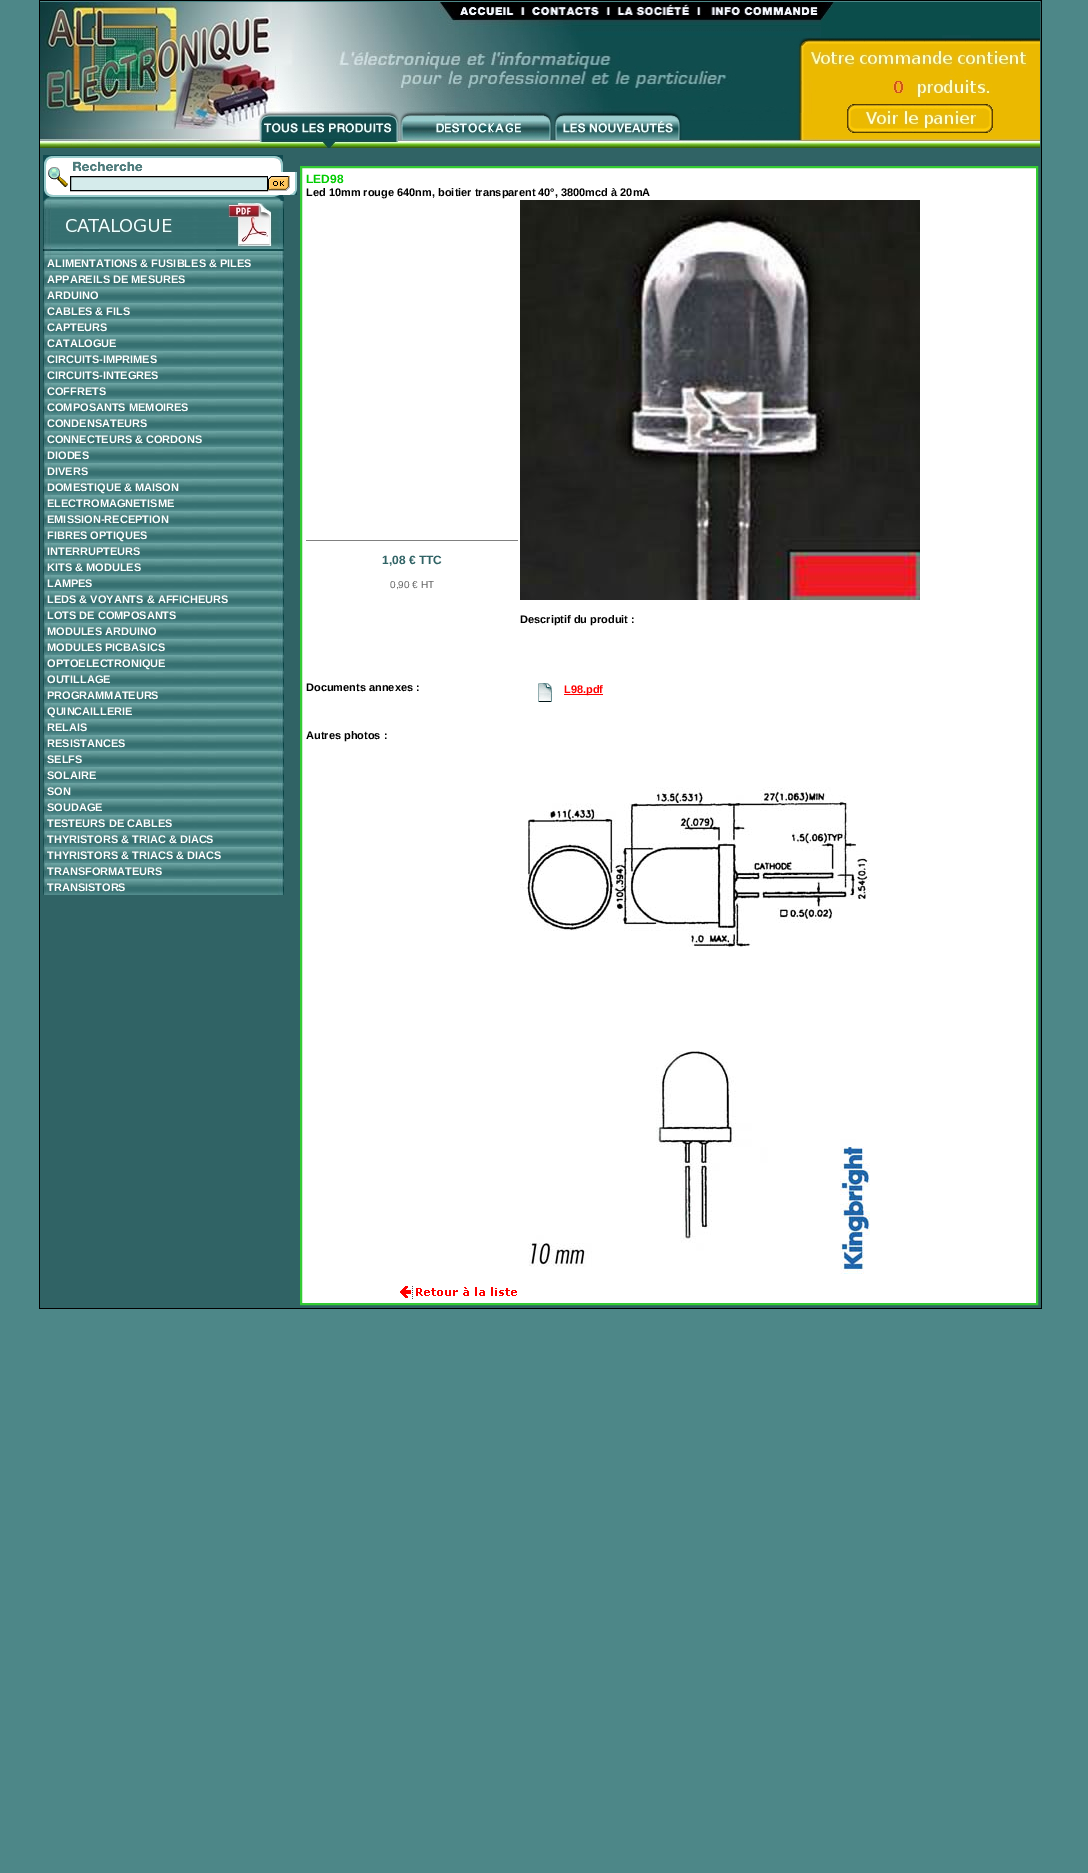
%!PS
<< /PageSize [1088 1873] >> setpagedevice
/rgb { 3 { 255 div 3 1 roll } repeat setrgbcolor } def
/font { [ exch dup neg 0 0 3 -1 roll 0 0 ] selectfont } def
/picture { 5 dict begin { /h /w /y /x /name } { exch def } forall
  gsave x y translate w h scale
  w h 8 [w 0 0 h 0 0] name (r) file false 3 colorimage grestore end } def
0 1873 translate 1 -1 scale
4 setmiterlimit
77 135 136 rgb
0 0 1088 1873 rectfill
[
  [39 0 1003 1309 0 0 0]
  [40 1 1001 1307 48 99 101]
  [40 1 1000 1 77 135 136]
] { aload pop rgb rectfill } forall
(img/1.rgb) 40 2 780 146 picture
(img/2.rgb) 820 2 220 17 picture
(img/3.rgb) 820 19 220 62 picture
235 185 0 rgb
820 81 73 12 rectfill
(img/4.rgb) 893 81 11 12 picture
904 81 11 12 rectfill
(img/5.rgb) 915 81 63 12 picture
(img/6.rgb) 978 81 15 12 picture
993 81 47 12 rectfill
(img/7.rgb) 820 93 220 11 picture
820 104 27 29 rectfill
(img/8.rgb) 847 104 146 29 picture
993 104 47 29 rectfill
(img/9.rgb) 820 133 220 15 picture
(img/10.rgb) 43 155 27 42 picture
(img/11.rgb) 70 155 213 17 picture
255 255 255 rgb
70 172 220 23 rectfill
213 235 235 rgb
70.5 176.5 moveto 267.5 176.5 lineto 267.5 190.5 lineto 70.5 190.5 lineto closepath gsave fill grestore
0 0 0 rgb
stroke
(img/12.rgb) 290 172 7 23 picture
(img/13.rgb) 268 176 22 15 picture
(img/14.rgb) 70 195 213 2 picture
(img/15.rgb) 43 197 241 4 picture
(img/16.rgb) 43 201 241 50 picture
(img/17.rgb) 43 251 241 4 picture
(img/18.rgb) 43 255 241 16 picture
(img/18.rgb) 43 271 241 16 picture
(img/18.rgb) 43 287 241 16 picture
(img/18.rgb) 43 303 241 16 picture
(img/18.rgb) 43 319 241 16 picture
(img/18.rgb) 43 335 241 16 picture
(img/18.rgb) 43 351 241 16 picture
(img/18.rgb) 43 367 241 16 picture
(img/18.rgb) 43 383 241 16 picture
(img/18.rgb) 43 399 241 16 picture
(img/18.rgb) 43 415 241 16 picture
(img/18.rgb) 43 431 241 16 picture
(img/18.rgb) 43 447 241 16 picture
(img/18.rgb) 43 463 241 16 picture
(img/18.rgb) 43 479 241 16 picture
(img/18.rgb) 43 495 241 16 picture
(img/18.rgb) 43 511 241 16 picture
(img/18.rgb) 43 527 241 16 picture
(img/18.rgb) 43 543 241 16 picture
(img/18.rgb) 43 559 241 16 picture
(img/18.rgb) 43 575 241 16 picture
(img/18.rgb) 43 591 241 16 picture
(img/18.rgb) 43 607 241 16 picture
(img/18.rgb) 43 623 241 16 picture
(img/18.rgb) 43 639 241 16 picture
(img/18.rgb) 43 655 241 16 picture
(img/18.rgb) 43 671 241 16 picture
(img/18.rgb) 43 687 241 16 picture
(img/18.rgb) 43 703 241 16 picture
(img/18.rgb) 43 719 241 16 picture
(img/18.rgb) 43 735 241 16 picture
(img/18.rgb) 43 751 241 16 picture
(img/18.rgb) 43 767 241 16 picture
(img/18.rgb) 43 783 241 16 picture
(img/18.rgb) 43 799 241 16 picture
(img/18.rgb) 43 815 241 16 picture
(img/18.rgb) 43 831 241 16 picture
(img/18.rgb) 43 847 241 16 picture
(img/18.rgb) 43 863 241 16 picture
(img/18.rgb) 43 879 241 16 picture
255 255 255 rgb
301 167 moveto 1037 167 lineto 1037 1304 lineto 301 1304 lineto closepath gsave fill grestore
51 204 51 rgb
2 setlinewidth
stroke
128 128 128 rgb
306 540 212 1 rectfill
(img/19.rgb) 520 200 400 400 picture
(img/20.rgb) 538 683 14 19 picture
255 0 0 rgb
564 694 39 1 rectfill
(img/21.rgb) 520 787 350 160 picture
(img/22.rgb) 528 1051 342 223 picture
(img/23.rgb) 400 1286 117 13 picture
/LiberationSans-Bold 11 font
255 255 255 rgb
[
  [(ALIMENTATIONS & FUSIBLES & PILES) 47 267]
  [(APPAREILS DE MESURES) 47 283]
  [(ARDUINO) 47 299]
  [(CABLES & FILS) 47 315]
  [(CAPTEURS) 47 331]
  [(CATALOGUE) 47 347]
  [(CIRCUITS-IMPRIMES) 47 363]
  [(CIRCUITS-INTEGRES) 47 379]
  [(COFFRETS) 47 395]
  [(COMPOSANTS MEMOIRES) 47 411]
  [(CONDENSATEURS) 47 427]
  [(CONNECTEURS & CORDONS) 47 443]
  [(DIODES) 47 459]
  [(DIVERS) 47 475]
  [(DOMESTIQUE & MAISON) 47 491]
  [(ELECTROMAGNETISME) 47 507]
  [(EMISSION-RECEPTION) 47 523]
  [(FIBRES OPTIQUES) 47 539]
  [(INTERRUPTEURS) 47 555]
  [(KITS & MODULES) 47 571]
  [(LAMPES) 47 587]
  [(LEDS & VOYANTS & AFFICHEURS) 47 603]
  [(LOTS DE COMPOSANTS) 47 619]
  [(MODULES ARDUINO) 47 635]
  [(MODULES PICBASICS) 47 651]
  [(OPTOELECTRONIQUE) 47 667]
  [(OUTILLAGE) 47 683]
  [(PROGRAMMATEURS) 47 699]
  [(QUINCAILLERIE) 47 715]
  [(RELAIS) 47 731]
  [(RESISTANCES) 47 747]
  [(SELFS) 47 763]
  [(SOLAIRE) 47 779]
  [(SON) 47 795]
  [(SOUDAGE) 47 811]
  [(TESTEURS DE CABLES) 47 827]
  [(THYRISTORS & TRIAC & DIACS) 47 843]
  [(THYRISTORS & TRIACS & DIACS) 47 859]
  [(TRANSFORMATEURS) 47 875]
  [(TRANSISTORS) 47 891]
] { aload pop moveto show } forall
/LiberationSans-Bold 12 font
0 204 0 rgb
306 183 moveto (LED98) show
/LiberationSans-Bold 11 font
0 0 0 rgb
306 196 moveto (Led 10mm rouge 640nm, boitier transparent 40°, 3800mcd à 20mA) show
/LiberationSans-Bold 12 font
48 99 101 rgb
382 564 moveto (1,08 € TTC) show
/LiberationSans-Regular 10 font
102 102 102 rgb
390 588 moveto (0,90 € HT) show
/LiberationSans-Bold 11 font
0 0 0 rgb
520 623 moveto (Descriptif du produit :) show
306 691 moveto (Documents annexes :) show
255 0 0 rgb
564 693 moveto (L98.pdf) show
0 0 0 rgb
306 739 moveto (Autres photos :) show
showpage
